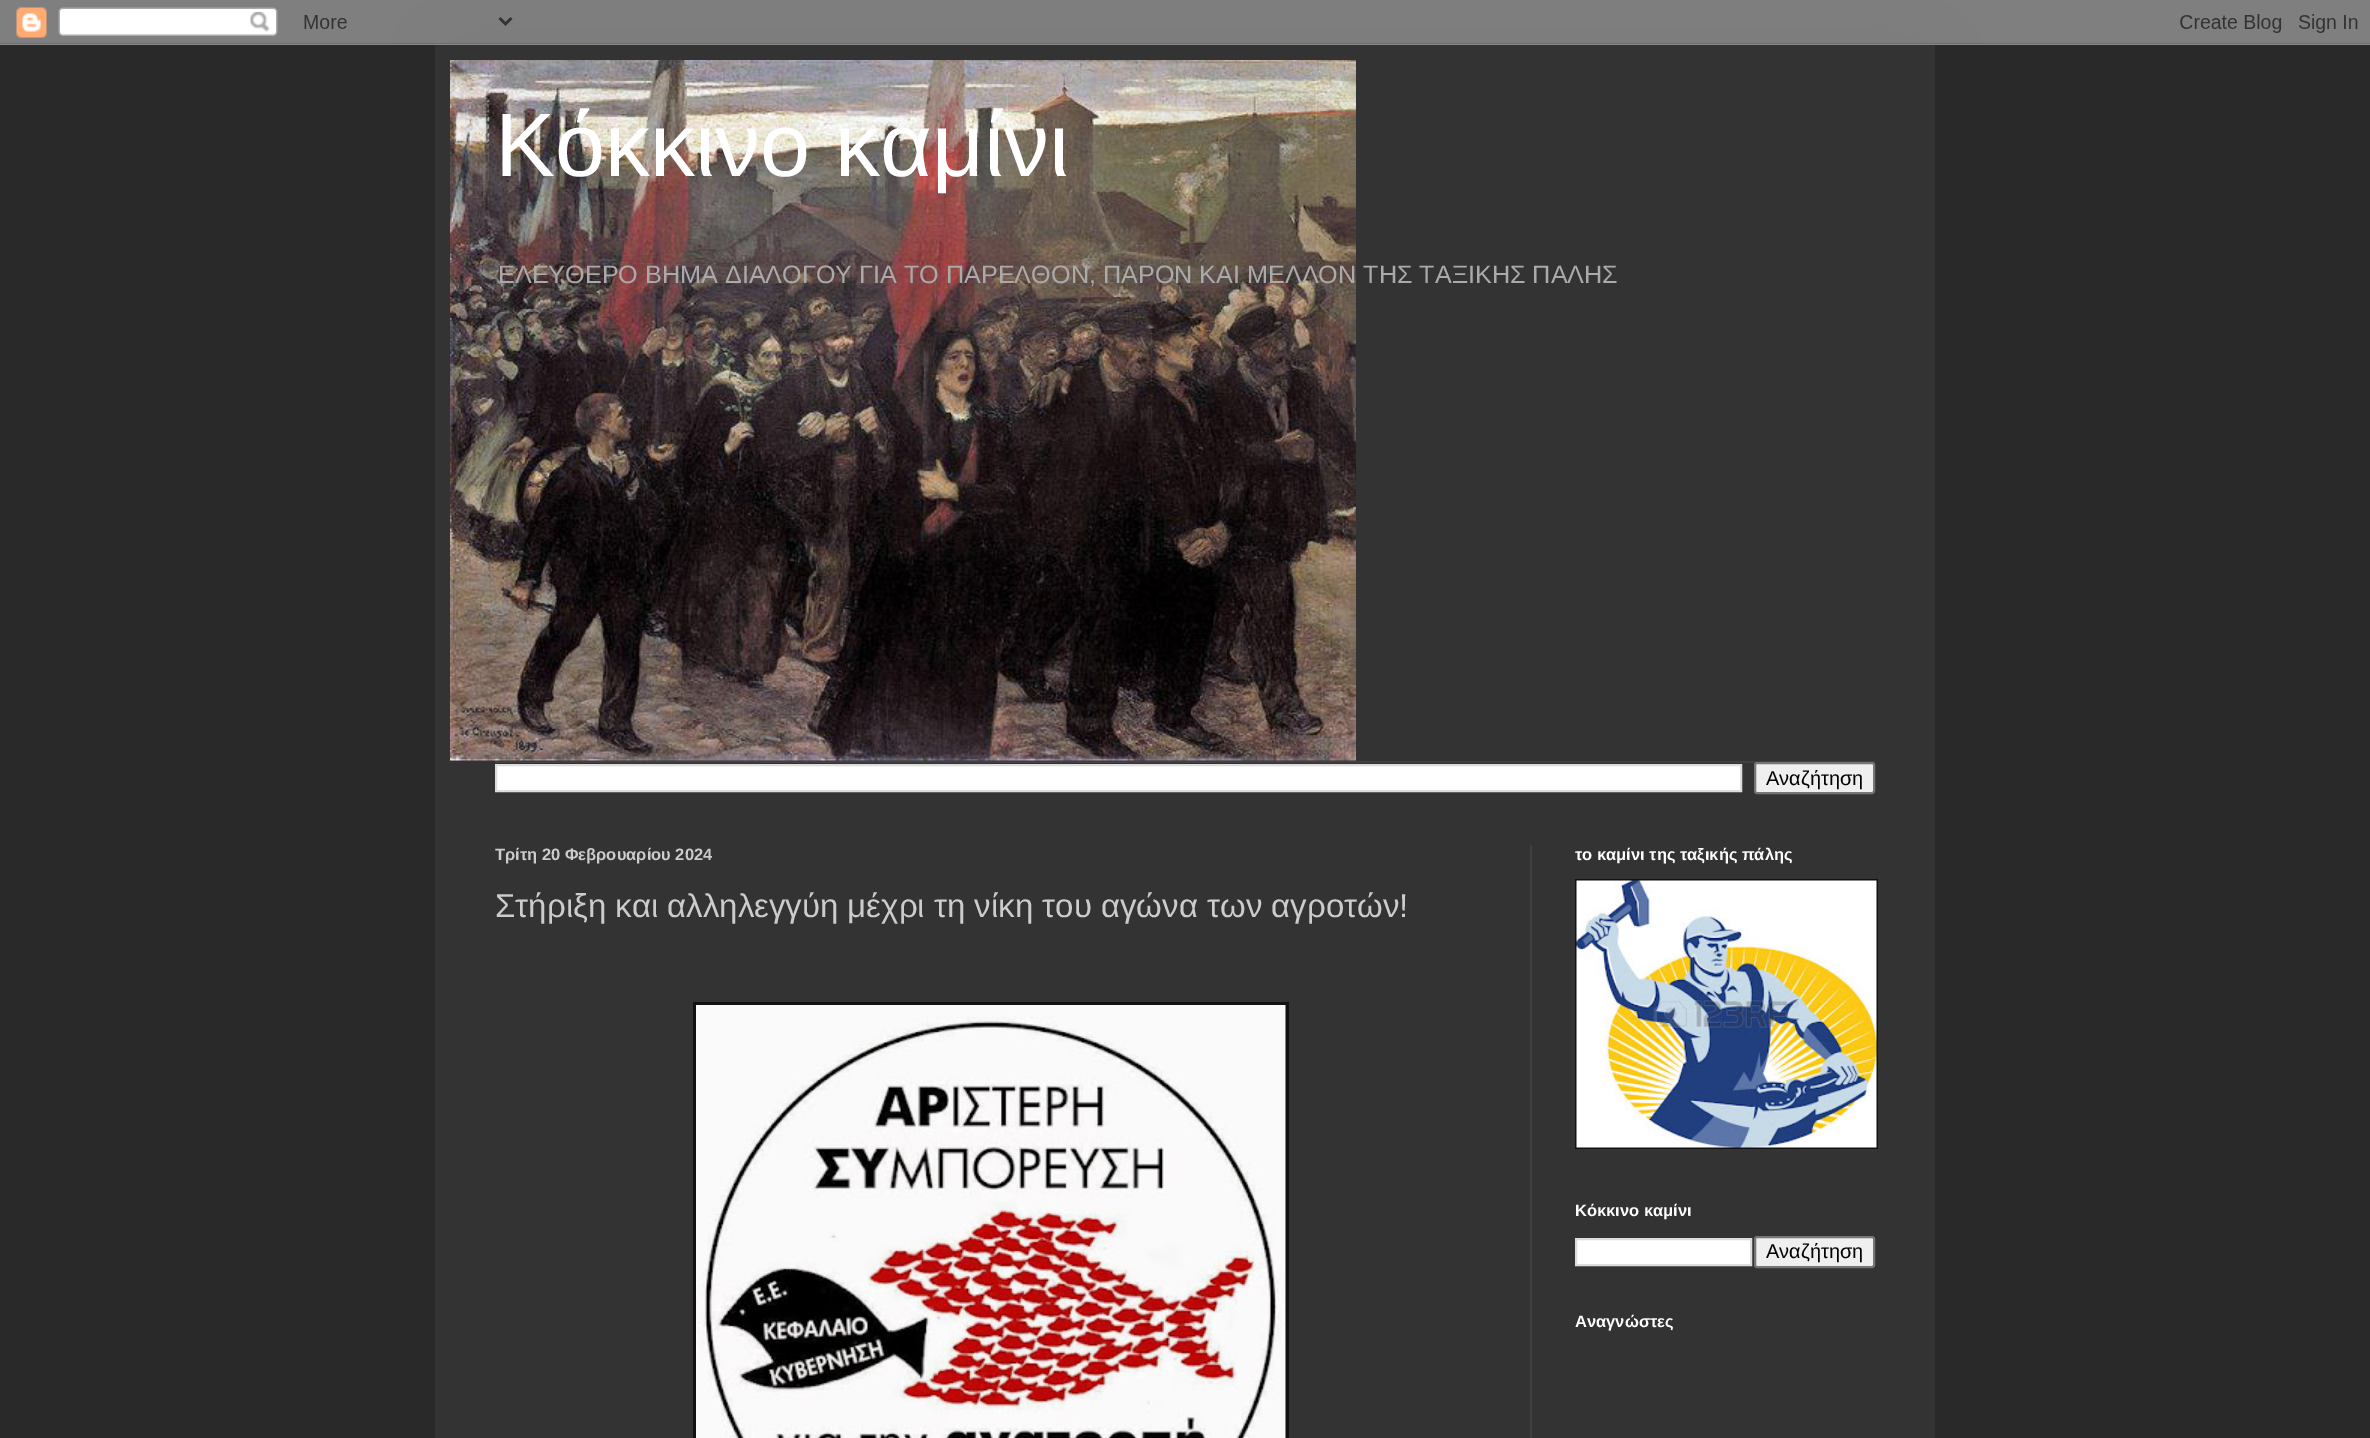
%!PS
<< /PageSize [2370 1438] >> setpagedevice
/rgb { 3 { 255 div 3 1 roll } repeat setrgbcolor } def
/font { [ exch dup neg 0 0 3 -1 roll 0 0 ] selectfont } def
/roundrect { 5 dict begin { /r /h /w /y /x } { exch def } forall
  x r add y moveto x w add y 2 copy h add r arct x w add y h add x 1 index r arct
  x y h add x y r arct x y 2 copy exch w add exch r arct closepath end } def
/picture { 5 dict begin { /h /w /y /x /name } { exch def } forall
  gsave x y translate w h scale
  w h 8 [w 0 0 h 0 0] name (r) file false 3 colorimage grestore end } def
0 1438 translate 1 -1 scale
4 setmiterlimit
41 41 41 rgb
0 0 2370 1438 rectfill
(img/1.rgb) 0 0 2370 45 picture
51 51 51 rgb
435 45 1500 1393 rectfill
(img/2.rgb) 450 60 906 701 picture
64 64 64 rgb
495 761 1380 2 rectfill
255 255 255 rgb
496 765 moveto 1741 765 lineto 1741 791 lineto 496 791 lineto closepath gsave fill grestore
221 221 221 rgb
2 setlinewidth
stroke
239 239 239 rgb
1755 763 119 30 2 roundrect gsave fill grestore
118 118 118 rgb
stroke
64 64 64 rgb
1530 845 2 593 rectfill
17 17 17 rgb
693 1002 596 436 rectfill
(img/3.rgb) 696 1005 590 433 picture
1575 879 303 270 rectfill
(img/4.rgb) 1576 880 301 268 picture
255 255 255 rgb
1576 1239 moveto 1751 1239 lineto 1751 1265 lineto 1576 1265 lineto closepath gsave fill grestore
221 221 221 rgb
stroke
239 239 239 rgb
1755 1237 119 30 2 roundrect gsave fill grestore
118 118 118 rgb
stroke
/LiberationSans-Regular 90 font
255 255 255 rgb
495 176 moveto (Κόκκινο καμίνι) show
/LiberationSans-Regular 25.2 font
170 170 170 rgb
498 283 moveto (ΕΛΕΥΘΕΡΟ ΒΗΜΑ ΔΙΑΛΟΓΟΥ ΓΙΑ ΤΟ ΠΑΡΕΛΘΟΝ, ΠΑΡΟΝ ΚΑΙ ΜΕΛΛΟΝ ΤΗΣ ΤΑΞΙΚΗΣ ΠΑΛΗΣ) show
/LiberationSans-Regular 20 font
0 0 0 rgb
1766 785 moveto (Αναζήτηση) show
/LiberationSans-Bold 16.5 font
204 204 204 rgb
495 860 moveto (Τρίτη 20 Φεβρουαρίου 2024) show
/LiberationSans-Regular 33 font
495 917 moveto (Στήριξη και αλληλεγγύη μέχρι τη νίκη του αγώνα των αγροτών!) show
/LiberationSans-Bold 16.5 font
255 255 255 rgb
1575 860 moveto (το καμίνι της ταξικής πάλης) show
1575 1216 moveto (Κόκκινο καμίνι) show
/LiberationSans-Regular 20 font
0 0 0 rgb
1766 1258 moveto (Αναζήτηση) show
/LiberationSans-Bold 16.5 font
255 255 255 rgb
1575 1327 moveto (Αναγνώστες) show
showpage
